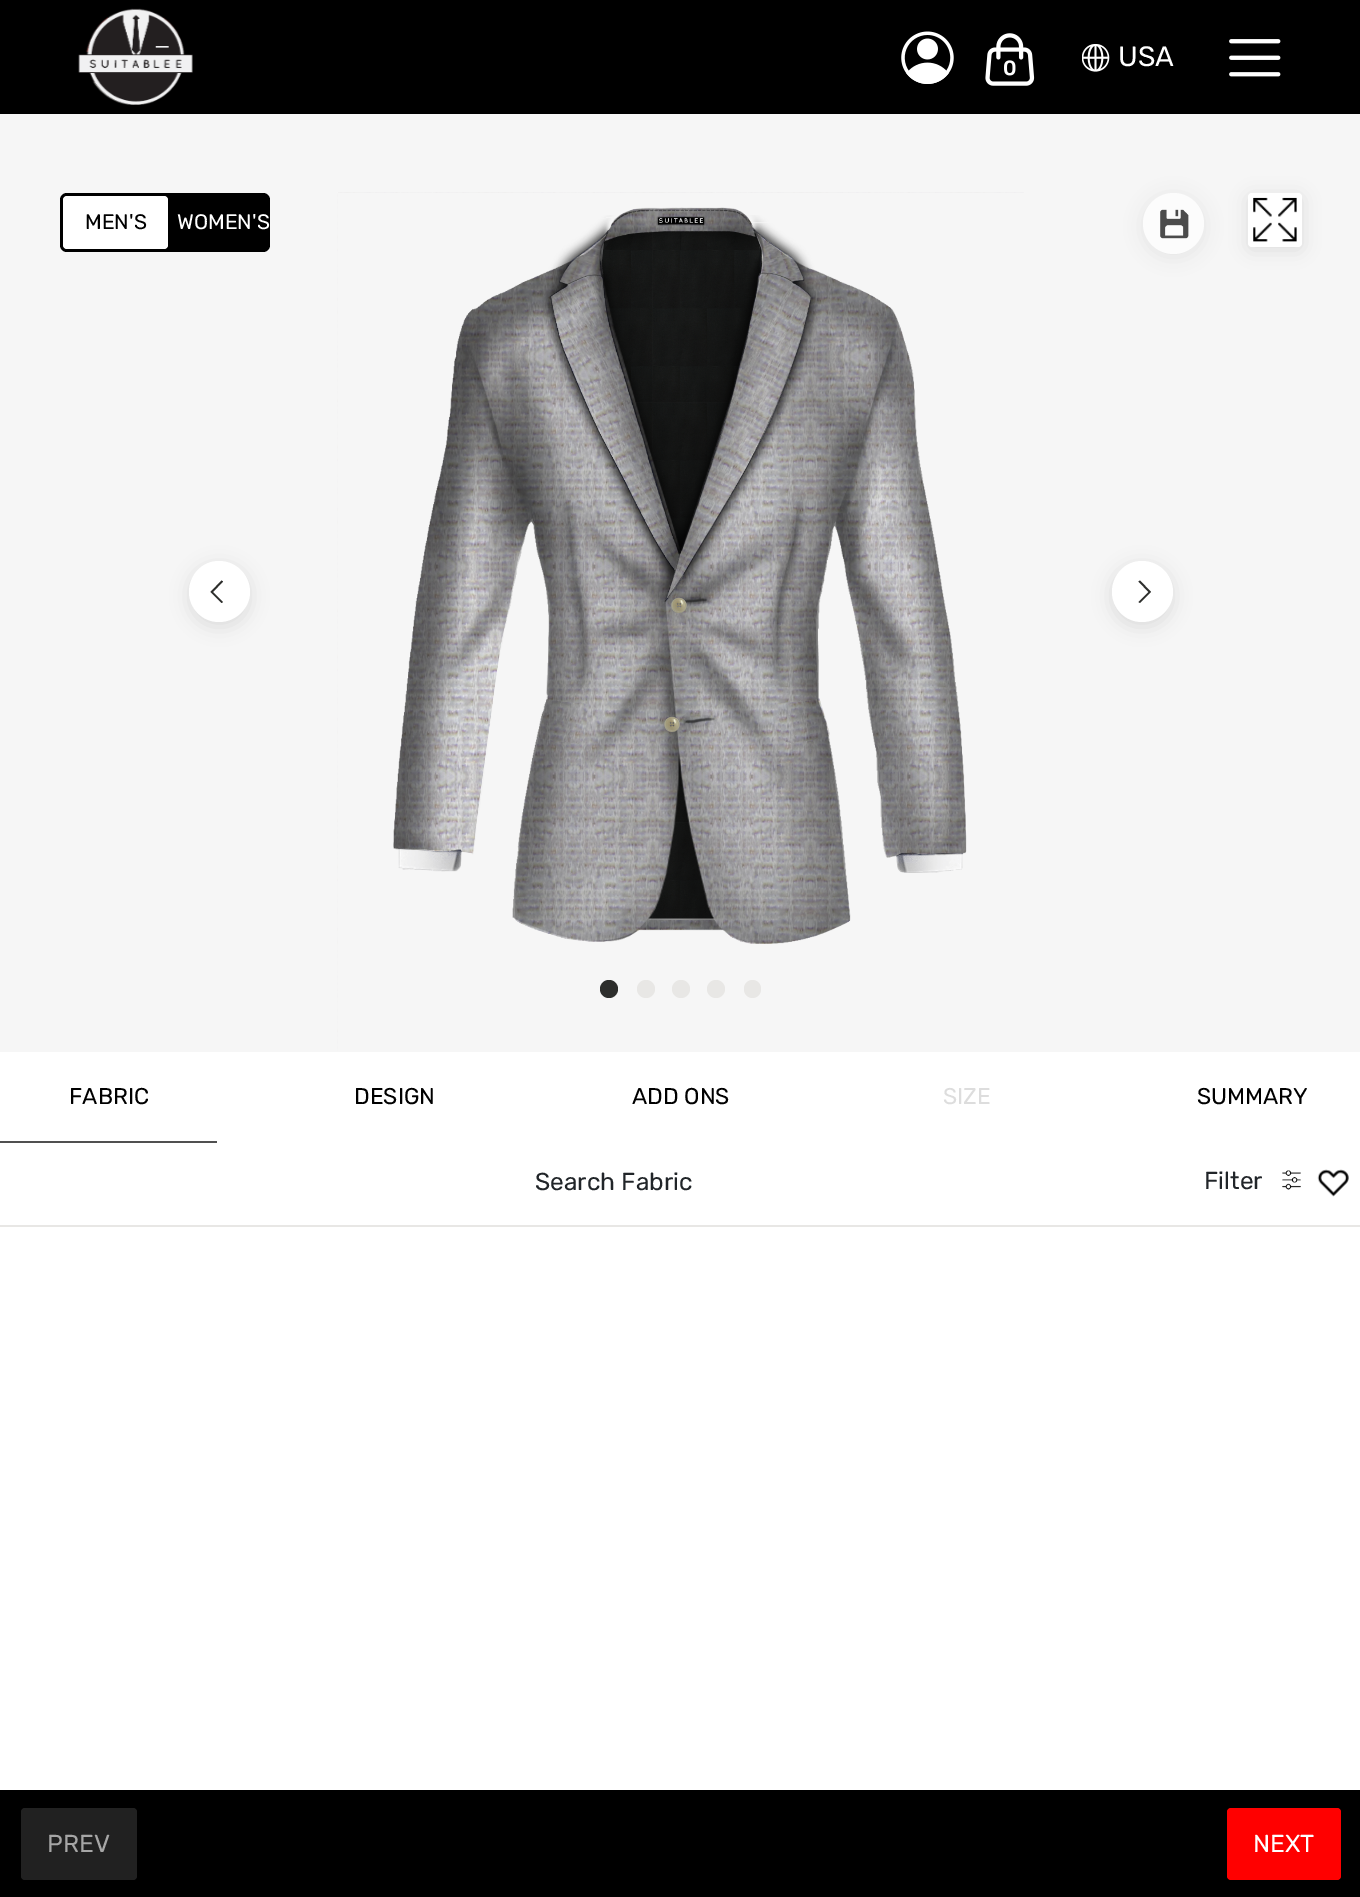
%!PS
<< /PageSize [1360 1897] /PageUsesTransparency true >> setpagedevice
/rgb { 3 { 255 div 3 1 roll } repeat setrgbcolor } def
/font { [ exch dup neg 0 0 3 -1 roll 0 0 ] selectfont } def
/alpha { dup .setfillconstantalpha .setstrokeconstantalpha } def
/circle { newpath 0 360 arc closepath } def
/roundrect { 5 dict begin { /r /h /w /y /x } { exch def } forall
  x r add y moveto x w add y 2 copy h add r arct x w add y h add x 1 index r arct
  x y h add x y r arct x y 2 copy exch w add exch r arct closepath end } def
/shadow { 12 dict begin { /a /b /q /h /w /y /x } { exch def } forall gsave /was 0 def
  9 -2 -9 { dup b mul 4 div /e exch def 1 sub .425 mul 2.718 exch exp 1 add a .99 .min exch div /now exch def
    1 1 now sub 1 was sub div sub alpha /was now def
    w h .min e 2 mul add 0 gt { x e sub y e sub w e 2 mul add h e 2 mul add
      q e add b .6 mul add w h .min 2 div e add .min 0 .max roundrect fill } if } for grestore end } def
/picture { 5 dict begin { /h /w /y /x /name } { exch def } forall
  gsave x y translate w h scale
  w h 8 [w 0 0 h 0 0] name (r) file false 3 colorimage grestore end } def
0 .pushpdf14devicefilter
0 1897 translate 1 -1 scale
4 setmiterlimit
246 246 246 rgb
0 0 1360 1897 rectfill
0 0 0 rgb
0 0 1360 114 rectfill
(img/1.rgb) 78 8 115 97 picture
(img/2.rgb) 901 31 53 53 picture
(img/3.rgb) 985 33 50 53 picture
(img/4.rgb) 1082 44 28 28 picture
(img/5.rgb) 1229 39 52 38 picture
74 74 74 rgb
1143 196 61 61 30.5 9 0.1 shadow
252 252 252 rgb
1173.5 223.5 30.5 circle fill
(img/6.rgb) 1160 209 29 30 picture
0 0 0 rgb
1248 196 54 54 4 9 0.1 shadow
255 255 255 rgb
1248 193 54 54 4 roundrect fill
(img/7.rgb) 1253 197 44 45 picture
(img/8.rgb) 337 192 687 860 picture
246 246 246 rgb
4 setlinewidth
340 195 682 855 rectstroke
(img/9.rgb) 394 208 572 736 picture
(img/14.rgb) 602 231 161 688 picture
(img/17.rgb) 667 272 145 327 picture
(img/16.rgb) 548 275 132 295 picture
(img/13.rgb) 561 232 47 52 picture
(img/15.rgb) 755 231 49 51 picture
(img/12.rgb) 540 215 282 392 picture
(img/18.rgb) 538 699 51 45 picture
(img/21.rgb) 777 698 53 45 picture
(img/10.rgb) 393 207 574 737 picture
(img/11.rgb) 603 209 156 41 picture
(img/19.rgb) 671 597 16 16 picture
(img/20.rgb) 664 716 16 16 picture
0 0 0 rgb
189 565 61 62 30.5 9 0.1 shadow
255 255 255 rgb
250 592 moveto 250 608 236 622 219 622 curveto 202 622 189 608 189 592 curveto 189 575 202 561 219 561 curveto 236 561 250 575 250 592 curveto closepath fill
45 46 44 rgb
223 602 moveto 221.5 603 lineto 210.5 592 lineto 221.5 580.5 lineto 223 581.5 lineto 213 592 lineto closepath fill
0 0 0 rgb
1111 565 62 62 31 9 0.1 shadow
255 255 255 rgb
1112 592 moveto 1112 575 1125 561 1142 561 curveto 1159 561 1173 575 1173 592 curveto 1173 608 1159 622 1142 622 curveto 1125 622 1112 608 1112 592 curveto closepath fill
45 46 44 rgb
1138.5 581.5 moveto 1140 580.5 lineto 1151 592 lineto 1140 603 lineto 1138.5 602 lineto 1148.5 592 lineto closepath fill
609 989 9 circle fill
232 231 229 rgb
646 989 9 circle fill
681 989 9 circle fill
716 989 9 circle fill
744 980 17 18 8.5 roundrect fill
0 0 0 rgb
60 193 210 59 7 roundrect fill
255 255 255 rgb
63 196 105 53 4 roundrect fill
[
  [0 1052 1360 738 255 255 255]
  [0 1141 217 2 80 80 80]
  [0 1225 1360 2 232 231 229]
] { aload pop rgb rectfill } forall
(img/22.rgb) 1282 1170 19 20 picture
(img/23.rgb) 1317 1169 32 28 picture
0 0 0 rgb
0 1790 1360 107 rectfill
33 33 33 rgb
21 1808 116 72 4 roundrect fill
255 0 0 rgb
1227 1808 114 72 4 roundrect fill
/Rubik-Regular 28 font
255 255 255 rgb
1118 66 moveto (USA) show
/Rubik-Regular 21 font
0 0 0 rgb
85 229 moveto (MEN'S) show
255 255 255 rgb
177 229 moveto (WOMEN'S) show
/Rubik-Regular 22.75 font
0 0 0 rgb
[
  [(FABRIC) 69 1104]
  [(DESIGN) 354 1104]
  [(ADD ONS) 632 1104]
] { aload pop moveto show } forall
221 221 221 rgb
943 1104 moveto (SIZE) show
0 0 0 rgb
1197 1104 moveto (SUMMARY) show
/Rubik-Regular 24.5 font
33 37 41 rgb
535 1190 moveto (Search Fabric) show
1204 1189 moveto (Filter) show
166 166 166 rgb
47 1852 moveto (PREV) show
255 255 255 rgb
1253 1852 moveto (NEXT) show
.poppdf14devicefilter showpage
